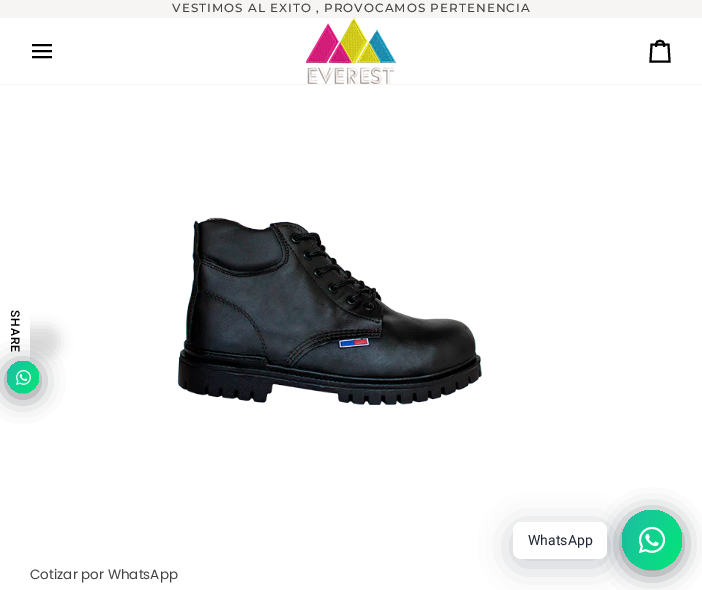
%!PS
<< /PageSize [702 590] /PageUsesTransparency true >> setpagedevice
/rgb { 3 { 255 div 3 1 roll } repeat setrgbcolor } def
/font { [ exch dup neg 0 0 3 -1 roll 0 0 ] selectfont } def
/alpha { dup .setfillconstantalpha .setstrokeconstantalpha } def
/circle { newpath 0 360 arc closepath } def
/roundrect { 5 dict begin { /r /h /w /y /x } { exch def } forall
  x r add y moveto x w add y 2 copy h add r arct x w add y h add x 1 index r arct
  x y h add x y r arct x y 2 copy exch w add exch r arct closepath end } def
/shadow { 12 dict begin { /a /b /q /h /w /y /x } { exch def } forall gsave /was 0 def
  9 -2 -9 { dup b mul 4 div /e exch def 1 sub .425 mul 2.718 exch exp 1 add a .99 .min exch div /now exch def
    1 1 now sub 1 was sub div sub alpha /was now def
    w h .min e 2 mul add 0 gt { x e sub y e sub w e 2 mul add h e 2 mul add
      q e add b .6 mul add w h .min 2 div e add .min 0 .max roundrect fill } if } for grestore end } def
/picture { 5 dict begin { /h /w /y /x /name } { exch def } forall
  gsave x y translate w h scale
  w h 8 [w 0 0 h 0 0] name (r) file false 3 colorimage grestore end } def
0 .pushpdf14devicefilter
0 590 translate 1 -1 scale
4 setmiterlimit
255 255 255 rgb
0 0 702 590 rectfill
247 245 244 rgb
0 0 702 18 rectfill
0 84 702 1 rectfill
0 0 0 rgb
2 setlinewidth
2 setlinecap
51 45 moveto 33 45 lineto 51 51 moveto 33 51 lineto 51 57 moveto 33 57 lineto stroke
(img/1.rgb) 306 18 90 66 picture
0 setlinecap
664 47 moveto 664 44.5 lineto 668.5 44.5 lineto 669.5 61.5 lineto 650.5 61.5 lineto 651.5 44.5 lineto 656 44.5 lineto 656 39.5 664 39.5 664 44.5 curveto 656 44.5 lineto 656 47 lineto stroke
-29 327 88 30 28 7 0.15 shadow
255 255 255 rgb
0 383 moveto 0 295 lineto 26 295 lineto 28 295 30 297 30 299 curveto 30 355 lineto 30 370 17 383 2 383 curveto closepath fill
2 6 16 rgb
7 365 32 32 16 12 0.5 shadow
gsave 23 377 16 circle clip newpath
<< /ShadingType 2 /ColorSpace /DeviceRGB /Coords [3.7 368 42 386] /Extend [true true] /Function << /FunctionType 2 /Domain [0 1] /C0 [0.118 0.745 0.647] /C1 [0.004 0.902 0.467] /N 1 >> >> shfill grestore
(img/2.rgb) 16 370 15 15 picture
622 514 60 60 30 12 0.5 shadow
gsave 652 540 30 circle clip newpath
<< /ShadingType 2 /ColorSpace /DeviceRGB /Coords [616 523 688 557] /Extend [true true] /Function << /FunctionType 2 /Domain [0 1] /C0 [0.118 0.745 0.647] /C1 [0.004 0.902 0.467] /N 1 >> >> shfill grestore
0 18 46 rgb
513 528 94 37 8 16 0.24 shadow
255 255 255 rgb
513 522 94 37 8 roundrect fill
(img/3.rgb) 639 526 27 27 picture
(img/4.rgb) 177 217 305 188 picture
/Montserrat-Medium 11.9 font
66 66 66 rgb
172 12 moveto 1.05 0 (VESTIMOS AL EXITO , PROVOCAMOS PERTENENCIA) ashow
/Roboto-Medium 12 font
0 0 0 rgb
gsave 11 310 translate 90 rotate 0 0 moveto 1 0 (SHARE) ashow grestore
/Roboto-Regular 14 font
30 36 51 rgb
528 545 moveto (WhatsApp) show
/Poppins-Regular 13.5 font
66 66 66 rgb
30 579 moveto (Cotizar por WhatsApp) show
.poppdf14devicefilter showpage
